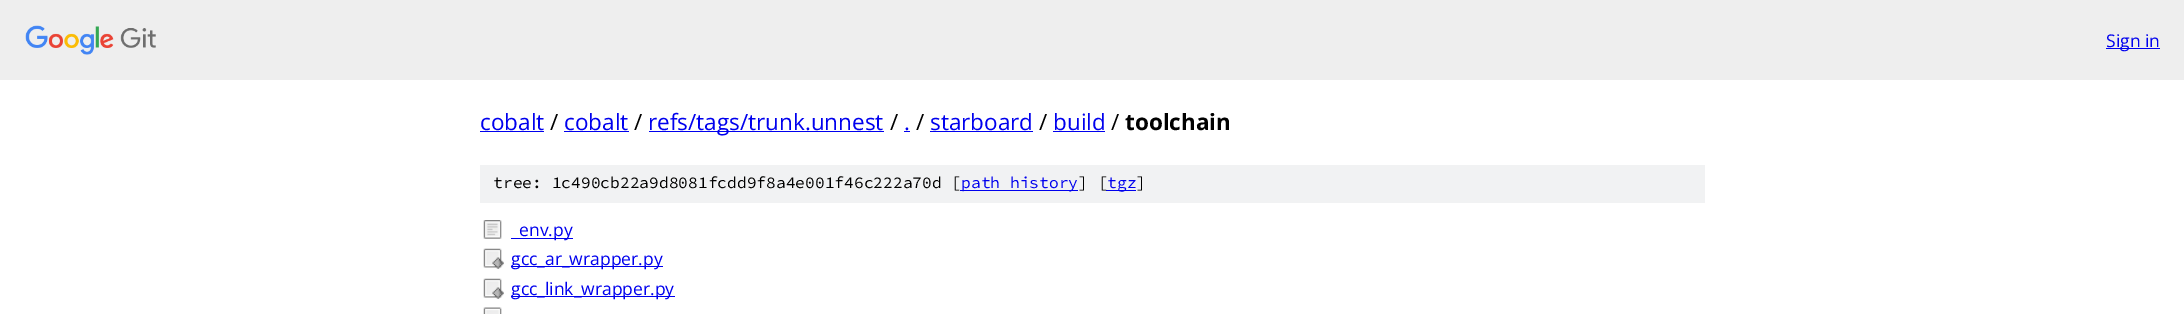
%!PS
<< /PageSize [2184 314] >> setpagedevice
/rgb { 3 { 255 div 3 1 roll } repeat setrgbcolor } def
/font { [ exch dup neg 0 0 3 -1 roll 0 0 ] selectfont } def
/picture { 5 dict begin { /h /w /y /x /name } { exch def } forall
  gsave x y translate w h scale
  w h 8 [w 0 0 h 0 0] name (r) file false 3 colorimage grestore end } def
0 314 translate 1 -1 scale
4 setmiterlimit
255 255 255 rgb
0 0 2184 314 rectfill
238 238 238 rgb
0 0 2184 80 rectfill
(img/1.rgb) 25 25 131 30 picture
[
  [2106 48 54 1 0 0 238]
  [480 131 64 1 0 0 238]
  [564 131 65 1 0 0 238]
  [649 131 235 1 0 0 238]
  [904 131 6 1 0 0 238]
  [930 131 103 1 0 0 238]
  [1053 131 52 1 0 0 238]
  [480 165 1225 38 241 242 243]
  [960 190 118 1 0 0 238]
  [1106 190 30 1 0 0 238]
] { aload pop rgb rectfill } forall
(img/2.rgb) 483 220 19 19 picture
511 238 62 1 rectfill
(img/3.rgb) 483 248 21 21 picture
511 266 152 1 rectfill
(img/4.rgb) 483 278 21 21 picture
511 296 164 1 rectfill
(img/5.rgb) 483 307 19 7 picture
/OpenSans-Regular 17.5 font
2106 47 moveto (Sign in) show
/OpenSans-Regular 22.5 font
480 130 moveto (cobalt) show
0 0 0 rgb
550 130 moveto (/) show
0 0 238 rgb
564 130 moveto (cobalt) show
0 0 0 rgb
634 130 moveto (/) show
0 0 238 rgb
648 130 moveto (refs/tags/trunk.unnest) show
0 0 0 rgb
890 130 moveto (/) show
0 0 238 rgb
904 130 moveto (.) show
0 0 0 rgb
916 130 moveto (/) show
0 0 238 rgb
930 130 moveto (starboard) show
0 0 0 rgb
1039 130 moveto (/) show
0 0 238 rgb
1053 130 moveto (build) show
0 0 0 rgb
1111 130 moveto (/) show
/OpenSans-Bold 22.5 font
1125 130 moveto (toolchain) show
/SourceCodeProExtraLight-ExtraLight 16.25 font
493 188 moveto (tree: 1c490cb22a9d8081fcdd9f8a4e001f46c222a70d [) show
0 0 238 rgb
961 188 moveto (path history) show
0 0 0 rgb
1078 188 moveto (] [) show
0 0 238 rgb
1107 188 moveto (tgz) show
0 0 0 rgb
1136 188 moveto (]) show
/OpenSans-Regular 17.5 font
0 0 238 rgb
[
  [(env.py) 519 236]
  [(gcc_ar_wrapper.py) 511 265]
  [(gcc_link_wrapper.py) 511 295]
] { aload pop moveto show } forall
showpage
